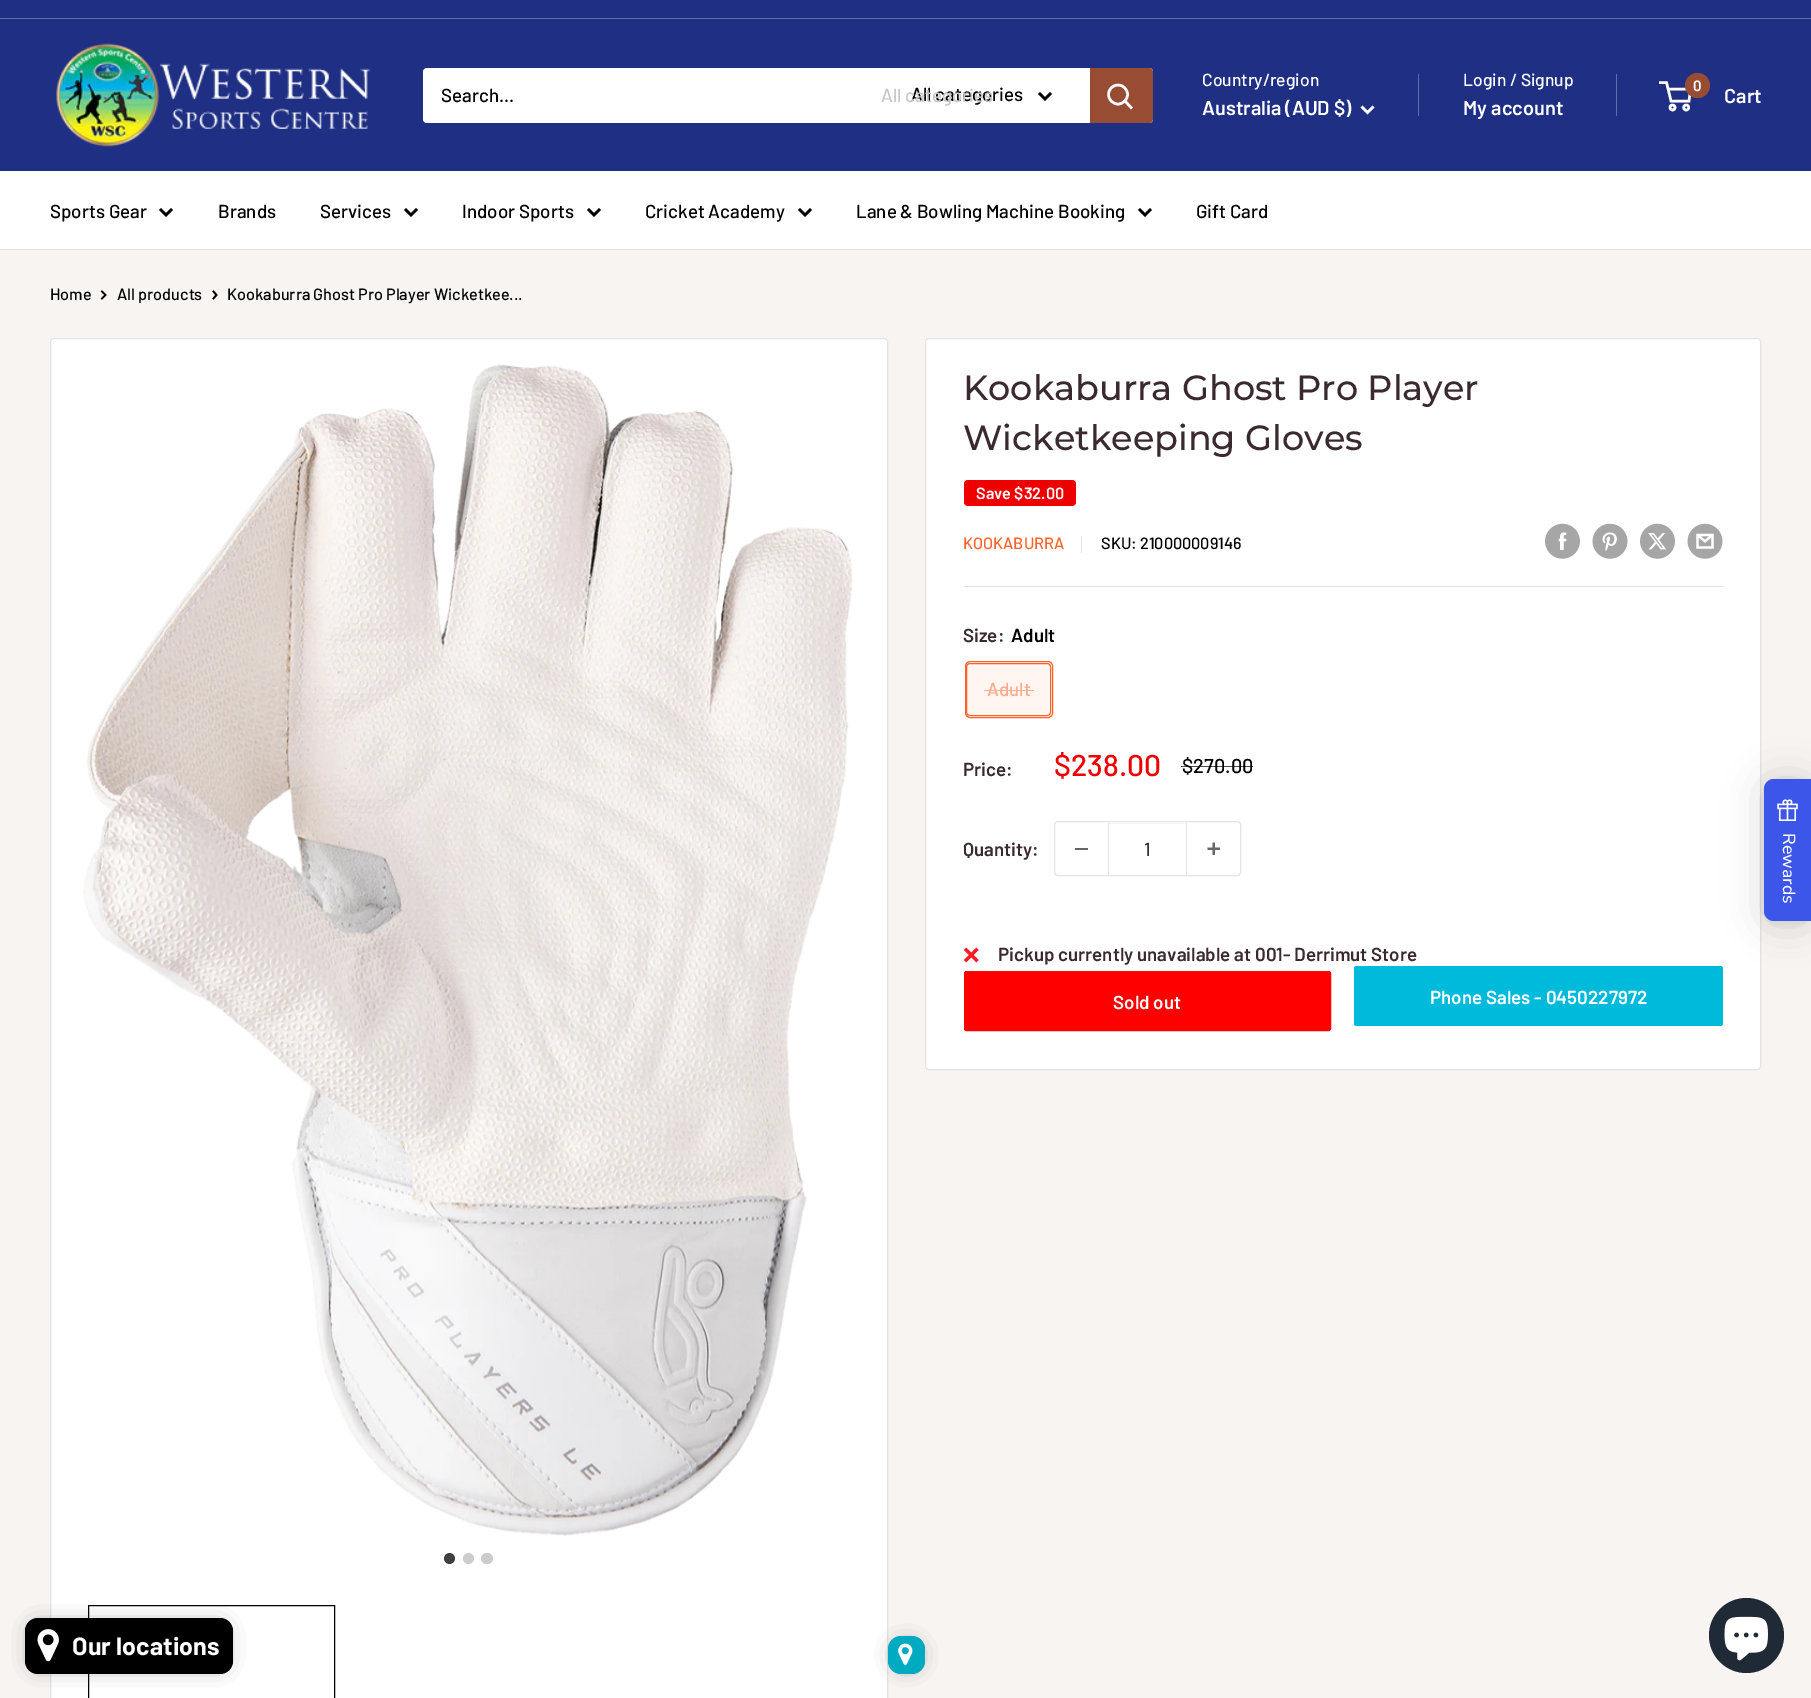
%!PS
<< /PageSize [1811 1698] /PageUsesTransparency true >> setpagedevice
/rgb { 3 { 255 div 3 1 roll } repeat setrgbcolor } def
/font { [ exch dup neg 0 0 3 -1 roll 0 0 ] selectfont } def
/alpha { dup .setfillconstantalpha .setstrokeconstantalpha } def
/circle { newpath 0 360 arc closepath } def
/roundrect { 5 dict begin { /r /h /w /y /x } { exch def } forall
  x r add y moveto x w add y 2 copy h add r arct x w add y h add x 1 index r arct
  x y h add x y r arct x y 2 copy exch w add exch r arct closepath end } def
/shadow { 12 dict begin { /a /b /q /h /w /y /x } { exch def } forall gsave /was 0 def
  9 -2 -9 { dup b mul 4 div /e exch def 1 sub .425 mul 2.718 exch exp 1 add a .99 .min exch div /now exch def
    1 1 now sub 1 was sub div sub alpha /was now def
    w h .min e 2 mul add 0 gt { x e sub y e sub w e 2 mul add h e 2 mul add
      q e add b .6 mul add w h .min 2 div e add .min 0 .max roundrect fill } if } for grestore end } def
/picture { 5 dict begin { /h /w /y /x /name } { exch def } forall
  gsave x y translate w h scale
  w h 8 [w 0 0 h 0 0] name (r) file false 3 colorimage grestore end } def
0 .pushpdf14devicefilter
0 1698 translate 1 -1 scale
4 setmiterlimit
247 244 242 rgb
0 0 1811 1698 rectfill
[
  [0 0 1811 18 31 47 131]
  [0 18 1811 1 98 109 168]
  [0 19 1811 152 31 47 131]
] { aload pop rgb rectfill } forall
(img/1.rgb) 56 43 315 104 picture
255 255 255 rgb
423 68 730 55 4 roundrect fill
0 0 0 rgb
2.5 setlinewidth
2 setlinecap
1050 94 moveto 1045 99 lineto 1040 94 lineto stroke
152 76 52 rgb
1090 68 moveto 1149 68 lineto 1151 68 1153 70 1153 72 curveto 1153 119 lineto 1153 121 1151 123 1149 123 curveto 1090 123 lineto closepath fill
255 255 255 rgb
1131 107.5 moveto 1125 101 lineto stroke
0 setlinecap
1118 94.5 9.5 circle stroke
2 setlinecap
1372.5 107.5 moveto 1367.5 112.5 lineto 1362.5 107.5 lineto stroke
98 109 168 rgb
1418 74 1 42 rectfill
1616 74 1 42 rectfill
255 255 255 rgb
0 setlinecap
1672.5 107.5 2.5 circle stroke
1686.2 107.5 2.5 circle stroke
1668 89 moveto 1690.5 89 lineto 1689 101 lineto 1671 101 lineto 1666.5 82.5 lineto 1659 82.5 lineto stroke
152 76 52 rgb
1697.5 85.5 12.5 circle fill
255 255 255 rgb
0 171 1811 78 rectfill
225 227 228 rgb
0 249 1811 1 rectfill
0 0 0 rgb
2 setlinecap
171 210 moveto 166 215 lineto 161 210 lineto stroke
416 210 moveto 411 215 lineto 406 210 lineto stroke
599 210 moveto 594 215 lineto 589 210 lineto stroke
810 210 moveto 805 215 lineto 800 210 lineto stroke
1150 210 moveto 1145 215 lineto 1140 210 lineto stroke
1.7 setlinewidth
102 291.5 moveto 105.5 295 lineto 102 298.5 lineto stroke
213.5 291.5 moveto 216.5 295 lineto 213.5 298.5 lineto stroke
255 255 255 rgb
50.5 338.5 837 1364 3.5 roundrect gsave fill grestore
225 227 228 rgb
1 setlinewidth
0 setlinecap
stroke
(img/2.rgb) 83 364 770 1172 picture
64 64 64 rgb
449.5 1558.5 5.5 circle fill
204 204 204 rgb
468.5 1558.5 5.5 circle fill
481 1553 12 11 5.5 roundrect fill
0 0 0 rgb
88.5 1605.5 246 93 rectstroke
255 255 255 rgb
925.5 338.5 835 731 3.5 roundrect gsave fill grestore
225 227 228 rgb
stroke
238 0 0 rgb
964 480 112 26 4 roundrect fill
225 227 228 rgb
1081 536 1 17 rectfill
(img/3.rgb) 1545 523 35 36 picture
(img/4.rgb) 1592 523 36 36 picture
(img/5.rgb) 1640 523 35 36 picture
(img/6.rgb) 1687 523 36 36 picture
964 586 759 1 rectfill
255 97 40 rgb
965.5 661.5 87 56 4.5 roundrect stroke
0.06 alpha
966 663 85 53 rectfill
1 alpha
966.5 663.5 84 52 3.5 roundrect stroke
255 171 141 rgb
984 690 50 1 rectfill
225 227 228 rgb
1054.5 821.5 186 54 3.5 roundrect stroke
[
  [1075 848 13 2 102 102 102]
  [1109 823 77 1 243 244 244]
  [1186 823 1 52 225 227 228]
  [1108 823 1 52 225 227 228]
] { aload pop rgb rectfill } forall
(img/7.rgb) 1207 842 13 13 picture
(img/8.rgb) 963 947 16 16 picture
255 0 0 rgb
964.5 971.5 366 59 2 roundrect gsave fill grestore
stroke
0 186 219 rgb
1354 966 369 60 2.5 roundrect fill
0 0 0 rgb
1764 781 47 143 10 20 0.16 shadow
1764 780 47 143 10 4 0.06 shadow
60 86 233 rgb
1774 779 moveto 1811 779 lineto 1811 921 lineto 1774 921 lineto 1768.5 921 1764 916.5 1764 911 curveto 1764 789 lineto 1764 783.5 1768.5 779 1774 779 curveto closepath fill
(img/9.rgb) 1777 799 21 22 picture
90 90 90 rgb
36 1629 185 34 1 11 1 shadow
0 0 0 rgb
25 1618 208 56 13 roundrect fill
(img/10.rgb) 37 1629 22 33 picture
90 90 90 rgb
899 1648 15 15 1 11 1 shadow
0 170 192 rgb
888 1636 37 38 13 roundrect fill
(img/11.rgb) 898 1643 15 22 picture
32 42 54 rgb
1746.5 1635.5 37.5 circle fill
(img/12.rgb) 1724 1616 44 45 picture
/Barlow-Medium 18.75 font
0 0 0 rgb
441 102 moveto (Search...) show
911 101 moveto (All categories) show
200 200 200 rgb
881 102 moveto (All categories) show
/Barlow-Medium 17.5 font
255 255 255 rgb
1202 86 moveto (Country/region) show
/Barlow-SemiBold 20 font
1202 115 moveto (Australia \(AUD $\)) show
/Barlow-Medium 17.5 font
1463 86 moveto (Login / Signup) show
/Barlow-SemiBold 20 font
1463 115 moveto (My account) show
/Barlow-SemiBold 15 font
1693 91 moveto (0) show
/Barlow-SemiBold 20 font
1724 103 moveto (Cart) show
/Barlow-Medium 18.75 font
0 0 0 rgb
[
  [(Sports Gear) 50 218]
  [(Brands) 218 218]
  [(Services) 320 218]
  [(Indoor Sports) 462 218]
  [(Cricket Academy) 645 218]
  [(Lane & Bowling Machine Booking) 856 218]
  [(Gift Card) 1196 218]
] { aload pop moveto show } forall
/Barlow-Medium 16.25 font
[
  [(Home) 50 300]
  [(All products) 117 300]
  [(Kookaburra Ghost Pro Player Wicketkee...) 227 300]
] { aload pop moveto show } forall
/Montserrat-Medium 35 font
58 42 47 rgb
963 400 moveto (Kookaburra Ghost Pro Player) show
963 450 moveto (Wicketkeeping Gloves) show
/Barlow-SemiBold 16.25 font
255 255 255 rgb
976 499 moveto (Save $32.00) show
/Barlow-Medium 16.25 font
255 97 40 rgb
963 549 moveto (KOOKABURRA) show
0 0 0 rgb
1101 549 moveto (SKU: 210000009146) show
/Barlow-SemiBold 18.75 font
58 42 47 rgb
963 642 moveto (Size:) show
0 0 0 rgb
1011 642 moveto (Adult) show
/Barlow-Medium 18.75 font
255 171 141 rgb
987 696 moveto (Adult) show
/Barlow-SemiBold 18.75 font
58 42 47 rgb
963 776 moveto (Price:) show
/Barlow-Medium 30 font
238 0 0 rgb
1054 776 moveto ($238.00) show
/Barlow-Medium 20 font
0 0 0 rgb
1182 773 moveto ($270.00) show
0.7 alpha
1181 766 72 1 rectfill
/Barlow-SemiBold 18.75 font
1 alpha
58 42 47 rgb
963 856 moveto (Quantity:) show
/Barlow-Medium 18.75 font
1144 856 moveto (1) show
/Barlow-SemiBold 18.75 font
998 961 moveto (Pickup currently unavailable at 001- Derrimut Store) show
255 255 255 rgb
1113 1009 moveto (Sold out) show
1430 1004 moveto (Phone Sales - 0450227972) show
/Nunito-Medium 17.5 font
gsave 1783 833 translate 90 rotate 0 0 moveto (Rewards) show grestore
/Barlow-Bold 25 font
72 1655 moveto 0.1 0 (Our locations) ashow
.poppdf14devicefilter showpage
